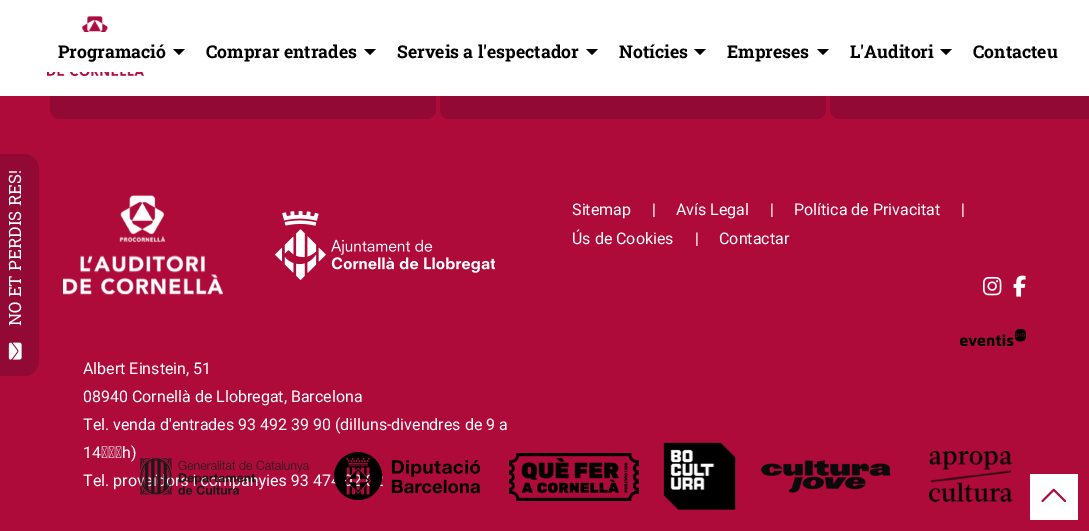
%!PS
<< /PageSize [1089 531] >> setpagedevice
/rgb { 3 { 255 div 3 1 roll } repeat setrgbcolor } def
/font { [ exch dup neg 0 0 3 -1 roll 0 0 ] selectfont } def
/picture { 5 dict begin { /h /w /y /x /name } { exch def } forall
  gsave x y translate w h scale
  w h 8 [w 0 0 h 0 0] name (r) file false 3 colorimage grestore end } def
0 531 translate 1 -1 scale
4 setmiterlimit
174 11 59 rgb
0 0 1089 531 rectfill
145 9 52 rgb
-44 361 moveto -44 169 lineto -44 161 -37 154 -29 154 curveto 24 154 lineto 32 154 39 161 39 169 curveto 39 361 lineto 39 369 32 376 24 376 curveto -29 376 lineto -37 376 -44 369 -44 361 curveto closepath fill
(img/1.rgb) 8 342 14 18 picture
255 255 255 rgb
0 0 1089 96 rectfill
(img/2.rgb) 47 16 97 60 picture
47 32 96 40 rectfill
0 0 0 rgb
173 49 moveto 185 49 lineto 179 55 lineto closepath fill
364 49 moveto 376 49 lineto 370 55 lineto closepath fill
586 49 moveto 598 49 lineto 592 55 lineto closepath fill
694 49 moveto 706 49 lineto 700 55 lineto closepath fill
817 49 moveto 829 49 lineto 823 55 lineto closepath fill
940 49 moveto 952 49 lineto 946 55 lineto closepath fill
(img/3.rgb) 50 96 386 23 picture
(img/4.rgb) 440 96 386 23 picture
(img/5.rgb) 830 96 259 23 picture
(img/6.rgb) 983 276 19 20 picture
(img/7.rgb) 1013 275 13 22 picture
(img/8.rgb) 960 329 66 17 picture
(img/9.rgb) 63 195 160 100 picture
(img/10.rgb) 275 211 220 69 picture
(img/13.rgb) 509 453 130 48 picture
(img/14.rgb) 663 442 74 68 picture
(img/15.rgb) 761 460 130 33 picture
(img/16.rgb) 929 451 84 52 picture
255 255 255 rgb
1030 474 48 46 rectfill
(img/17.rgb) 1041 488 26 15 picture
/RobotoSlab-Regular 17 font
gsave 21 326 translate -90 rotate 0 0 moveto (NO ET PERDIS RES!) show grestore
/RobotoSlab-Bold 17.6 font
0 0 0 rgb
[
  [(Programació) 58 58]
  [(Comprar entrades) 206 58]
  [(Serveis a l'espectador) 397 58]
  [(Notícies) 619 58]
  [(Empreses) 727 58]
  [(L'Auditori) 850 58]
  [(Contacteu) 973 58]
] { aload pop moveto show } forall
/Roboto-Regular 16 font
255 255 255 rgb
572 215 moveto (Sitemap) show
/RobotoSlab-Regular 16 font
652 215 moveto (|) show
/Roboto-Regular 16 font
676 215 moveto (Avís Legal) show
/RobotoSlab-Regular 16 font
770 215 moveto (|) show
/Roboto-Regular 16 font
794 215 moveto (Política de Privacitat) show
/RobotoSlab-Regular 16 font
961 215 moveto (|) show
/Roboto-Regular 16 font
572 244 moveto (Ús de Cookies) show
/RobotoSlab-Regular 16 font
695 244 moveto (|) show
/Roboto-Regular 16 font
[
  [(Contactar) 719 244]
  [(Albert Einstein, 51) 83 374]
  [(08940 Cornellà de Llobregat, Barcelona) 83 402]
  [(Tel. venda d'entrades 93 492 39 90 \(dilluns-divendres de 9 a) 83 430]
  [(14 h\)) 83 458]
  [(Tel. proveïdors i companyies 93 474 02 02) 83 486]
] { aload pop moveto show } forall
(img/11.rgb) 140 458 169 37 picture
(img/12.rgb) 334 452 147 49 picture
showpage
